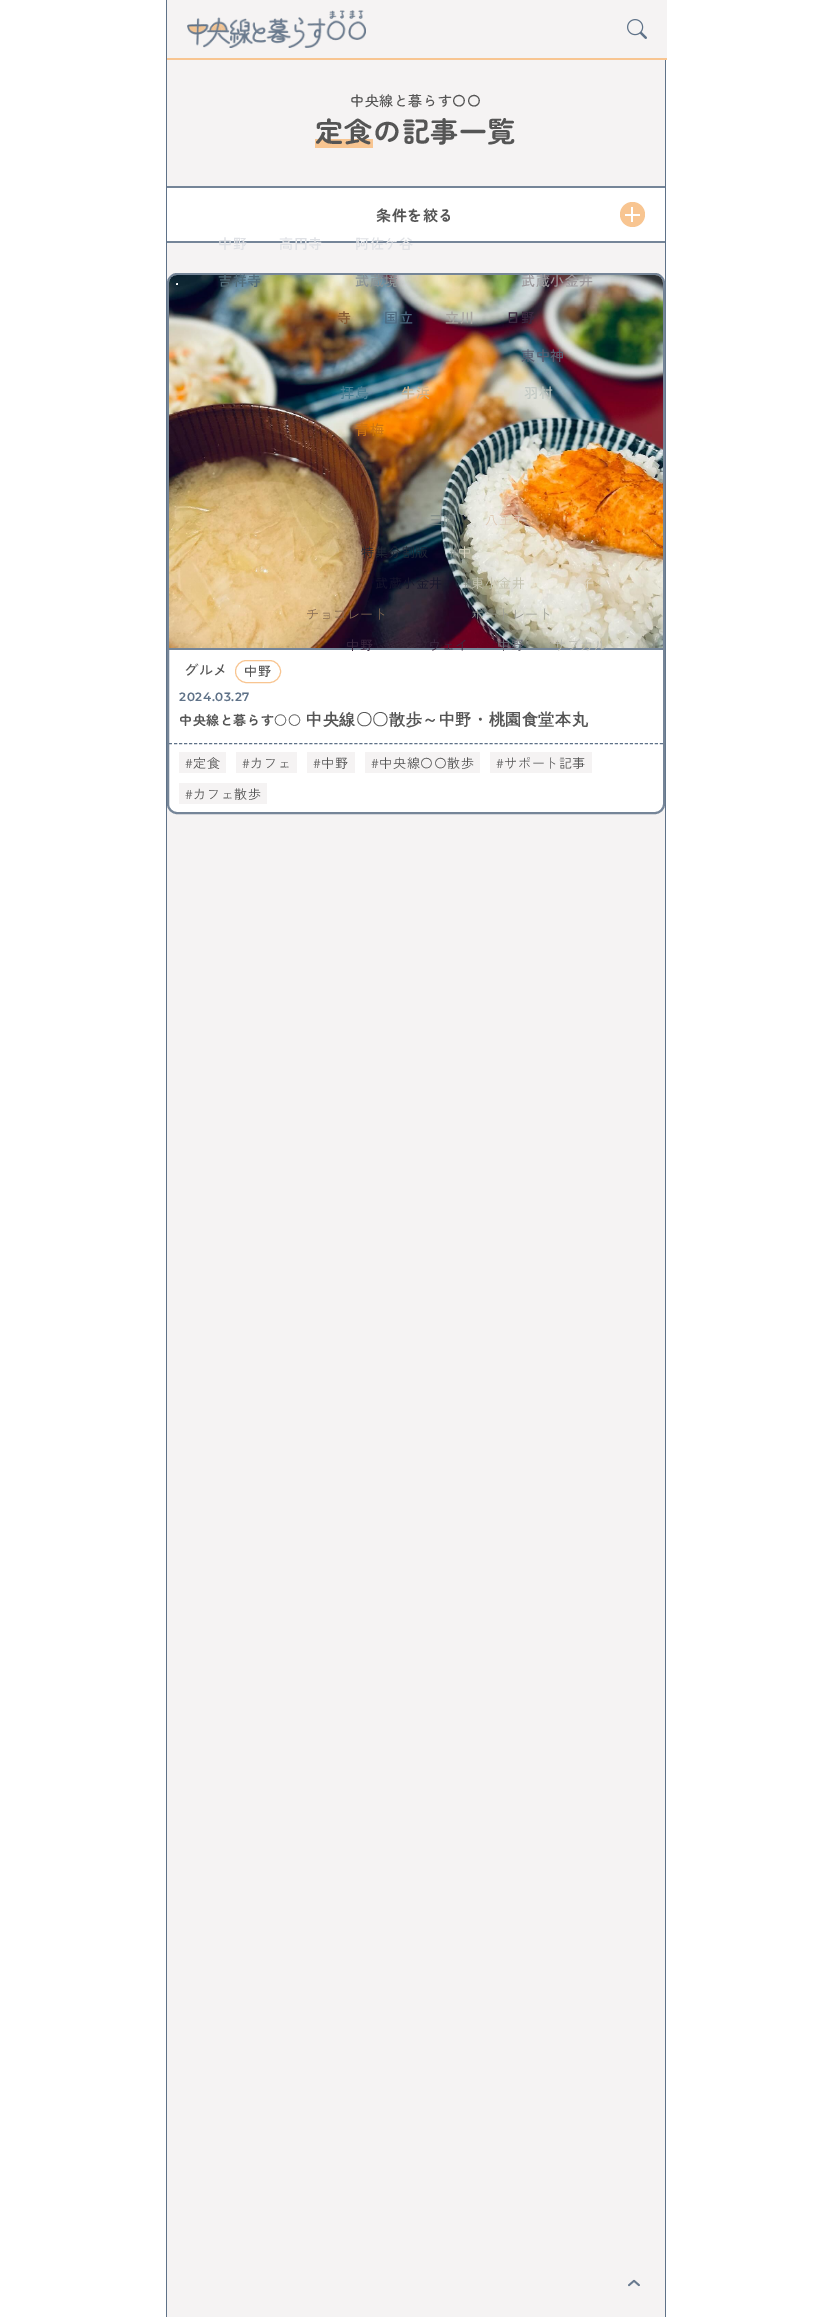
%!PS
<< /PageSize [831 2317] >> setpagedevice
/rgb { 3 { 255 div 3 1 roll } repeat setrgbcolor } def
/font { [ exch dup neg 0 0 3 -1 roll 0 0 ] selectfont } def
/circle { newpath 0 360 arc closepath } def
/roundrect { 5 dict begin { /r /h /w /y /x } { exch def } forall
  x r add y moveto x w add y 2 copy h add r arct x w add y h add x 1 index r arct
  x y h add x y r arct x y 2 copy exch w add exch r arct closepath end } def
/picture { 5 dict begin { /h /w /y /x /name } { exch def } forall
  gsave x y translate w h scale
  w h 8 [w 0 0 h 0 0] name (r) file false 3 colorimage grestore end } def
0 2317 translate 1 -1 scale
4 setmiterlimit
255 255 255 rgb
0 0 831 2317 rectfill
[
  [665 60 1 2257 95 114 136]
  [166 0 1 2317 95 114 136]
  [167 60 498 2257 245 243 243]
  [315 139 58 9 248 197 145]
  [167 188 498 53 255 255 255]
  [167 186 498 2 117 133 152]
  [167 241 498 2 117 133 152]
] { aload pop rgb rectfill } forall
248 197 145 rgb
632.5 214.5 12.5 circle fill
255 255 255 rgb
625 214 15 2 rectfill
631 207 2 15 rectfill
168 274 496 539 9 roundrect gsave fill grestore
117 133 152 rgb
2 setlinewidth
stroke
(img/1.rgb) 169 275 494 373 picture
255 255 255 rgb
177.5 283 moveto 178 283 178 283 178 283.5 curveto 178 284.5 lineto 178 285 178 285 177.5 285 curveto 176.5 285 lineto 176 285 176 285 176 284.5 curveto 176 283.5 176.5 283 177.5 283 curveto closepath fill
117 133 152 rgb
169 648 494 2 rectfill
248 197 145 rgb
1 setlinewidth
235.5 660.5 45 22 11 roundrect stroke
95 114 136 rgb
[3 2.01] 0 setdash
169 743.5 moveto 663 743.5 lineto stroke
245 243 243 rgb
179 752 47 21 1 roundrect fill
236 752 61 21 1 roundrect fill
307 752 48 21 1 roundrect fill
365 752 115 21 1 roundrect fill
490 752 102 21 1 roundrect fill
179 783 88 21 1 roundrect fill
167 0 500 58 rectfill
248 197 145 rgb
167 58 500 2 rectfill
(img/2.rgb) 187 10 179 38 picture
(img/3.rgb) 627 19 20 20 picture
(img/4.rgb) 628 2279 12 8 picture
/ZenMaruGothic-Medium 14 font
85 85 85 rgb
350 106 moveto 0.6 0 (中央線と暮らす〇〇) ashow
/ZenMaruGothic-Bold 28 font
315 142 moveto 0.6 0 (定食) ashow
373 142 moveto 0.6 0 (の記事一覧) ashow
/ZenMaruGothic-Bold 15 font
376 221 moveto 0.6 0 (条件を絞る) ashow
/ZenKakuGothicAntique-Medium 14 font
184 675 moveto 0.6 0 (グルメ) ashow
/ZenKakuGothicAntique-Medium 13 font
244 676 moveto 0.6 0 (中野) ashow
/Montserrat-Thin 12 font
95 114 136 rgb
179 701 moveto 0.6 0 (2024.03.27) ashow
/ZenMaruGothic-Bold 13 font
85 85 85 rgb
179 725 moveto 0.6 0 (中央線と暮らす○○) ashow
/WenQuanYiZenHei-Bold 16 font
306 725 moveto 0.6 0 (中央線〇〇散歩～中野・桃園食堂本丸) ashow
/ZenKakuGothicAntique-Regular 13 font
185 768 moveto 0.6 0 (#定食) ashow
242 768 moveto 0.6 0 (#カフェ) ashow
313 768 moveto 0.6 0 (#中野) ashow
371 768 moveto 0.6 0 (#中央線〇〇散歩) ashow
496 768 moveto 0.6 0 (#サポート記事) ashow
185 799 moveto 0.6 0 (#カフェ散歩) ashow
/ZenKakuGothicAntique-Medium 14 font
223 225 229 rgb
218 249 moveto 0.6 0 (中野) ashow
279 249 moveto 0.6 0 (高円寺) ashow
355 249 moveto 0.6 0 (阿佐ケ谷) ashow
83 109 121 rgb
218 286 moveto 0.6 0 (吉祥寺) ashow
138 146 148 rgb
355 286 moveto 0.6 0 (武蔵境) ashow
157 153 156 rgb
521 286 moveto 0.6 0 (武蔵小金井) ashow
133 90 50 rgb
337 323 moveto 0.6 0 (寺) ashow
76 104 126 rgb
384 323 moveto 0.6 0 (国立) ashow
168 165 159 rgb
445 323 moveto 0.6 0 (立川) ashow
59 40 63 rgb
506 323 moveto 0.6 0 (日野) ashow
89 93 112 rgb
521 361 moveto 0.6 0 (東中神) ashow
75 128 149 rgb
340 398 moveto 0.6 0 (拝島) ashow
207 178 139 rgb
401 398 moveto 0.6 0 (牛浜) ashow
194 201 196 rgb
524 398 moveto 0.6 0 (羽村) ashow
204 116 18 rgb
355 435 moveto 0.6 0 (青梅) ashow
/ZenKakuGothicAntique-Regular 13 font
125 85 63 rgb
352 525 moveto 0.6 0 (#) ashow
121 134 132 rgb
429 525 moveto 0.6 0 (三鷹) ashow
222 202 182 rgb
485 525 moveto 0.6 0 (八王子) ashow
33 39 51 rgb
361 557 moveto 0.6 0 (特集分割版) ashow
132 144 141 rgb
449 557 moveto 0.6 0 (#) ashow
216 211 192 rgb
458 557 moveto 0.6 0 (中) ashow
24 23 44 rgb
375 588 moveto 0.6 0 (武蔵小金井) ashow
136 143 135 rgb
463 588 moveto 0.6 0 (#) ashow
196 195 177 rgb
471 588 moveto 0.6 0 (東小金井) ashow
225 216 196 rgb
581 588 moveto 0.6 0 (子) ashow
136 109 85 rgb
306 619 moveto 0.6 0 (チョコレート) ashow
155 157 149 rgb
471 619 moveto 0.6 0 (ポートレート) ashow
59 40 63 rgb
346 650 moveto 0.6 0 (中野) ashow
428 650 moveto 0.6 0 (ウェイ) ashow
107 105 115 rgb
497 650 moveto 0.6 0 (中野) ashow
185 186 177 rgb
553 650 moveto 0.6 0 (サブカル) ashow
showpage
